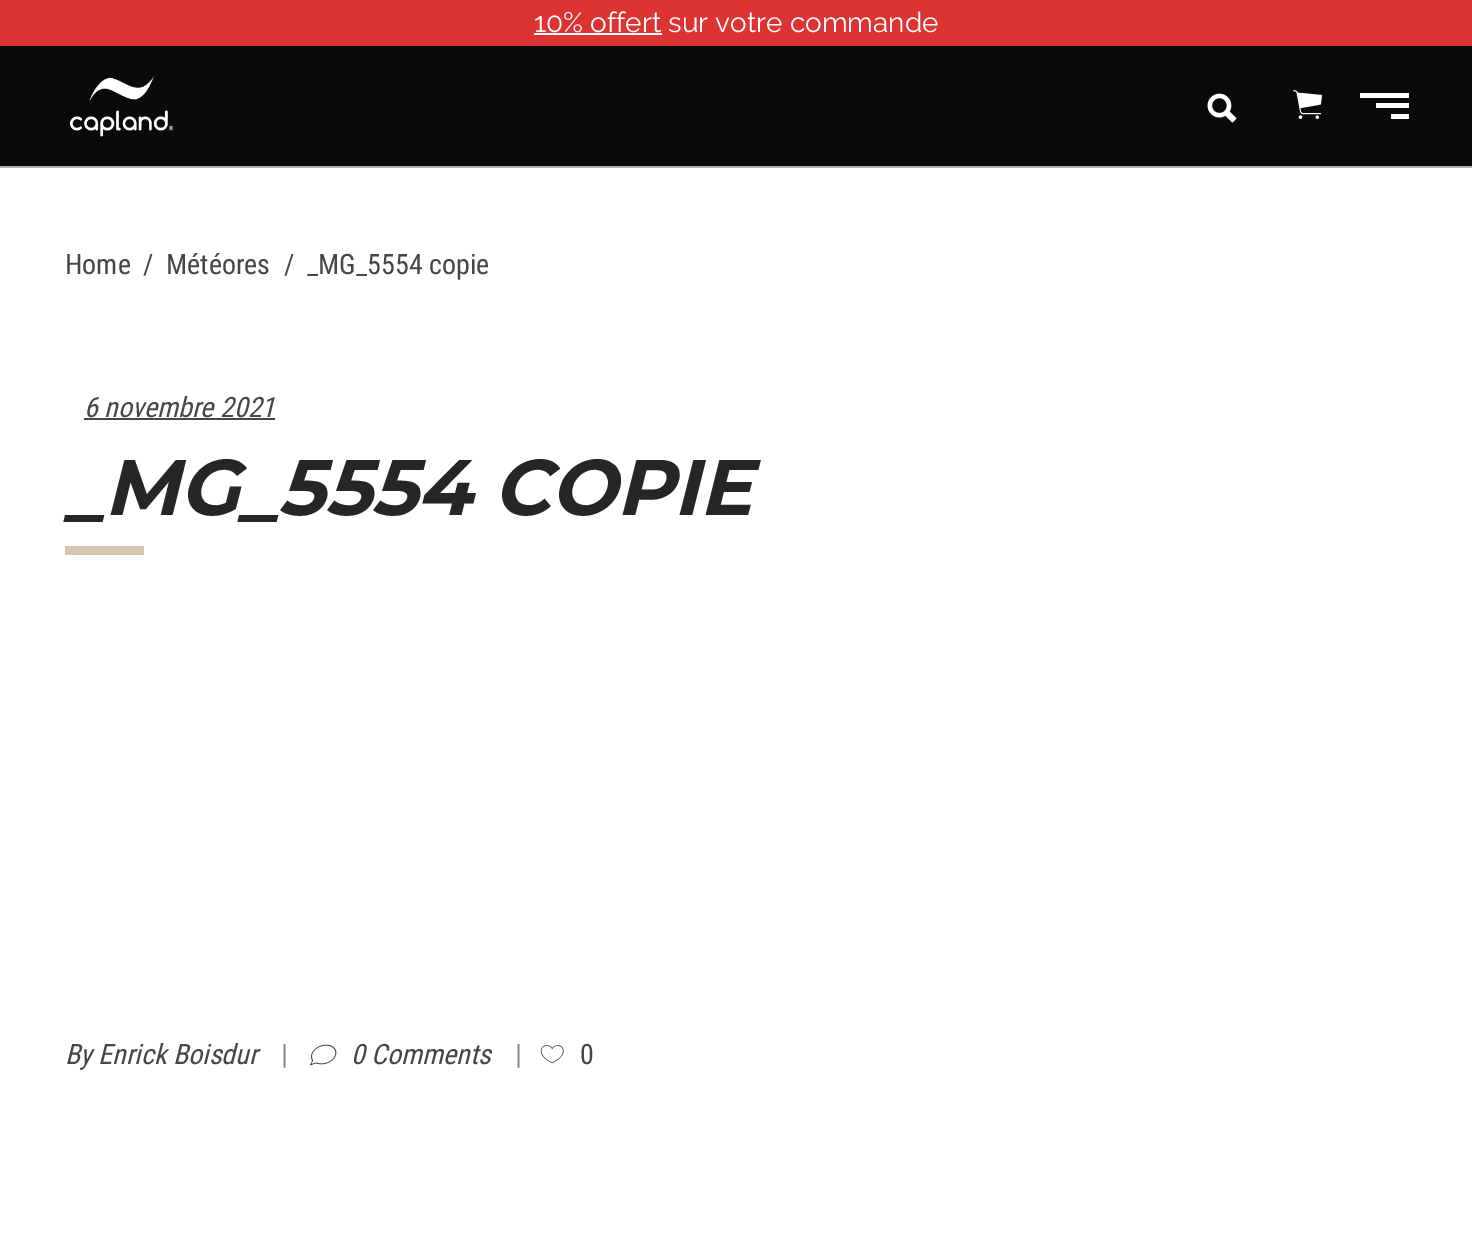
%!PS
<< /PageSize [1472 1235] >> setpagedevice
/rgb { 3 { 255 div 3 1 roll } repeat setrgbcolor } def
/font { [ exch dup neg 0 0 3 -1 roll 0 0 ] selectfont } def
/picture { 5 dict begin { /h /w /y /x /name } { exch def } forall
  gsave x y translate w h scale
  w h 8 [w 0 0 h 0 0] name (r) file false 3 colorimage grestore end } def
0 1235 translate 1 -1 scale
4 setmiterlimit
255 255 255 rgb
0 0 1472 1235 rectfill
[
  [0 0 1472 46 221 51 51]
  [534 33 128 2 255 255 255]
  [0 46 1472 120 10 10 10]
  [0 166 1472 2 178 178 178]
] { aload pop rgb rectfill } forall
(img/1.rgb) 69 77 104 60 picture
(img/2.rgb) 1207 93 30 30 picture
(img/3.rgb) 1293 90 30 29 picture
[
  [1360 93 49 5 255 255 255]
  [1376 103 33 5 255 255 255]
  [1391 114 18 5 255 255 255]
  [84 418 191 2 70 70 70]
  [65 546 79 9 214 197 177]
] { aload pop rgb rectfill } forall
(img/4.rgb) 309 1044 28 22 picture
(img/5.rgb) 540 1045 24 19 picture
/Raleway-Regular 28 font
255 255 255 rgb
534 32 moveto (10% offert sur votre commande) show
/RobotoCondensed-Regular 28 font
70 70 70 rgb
[
  [(Home) 65 274]
  [(/) 143 274]
  [(Météores) 166 274]
  [(/) 284 274]
  [(_MG_5554 copie) 307 274]
] { aload pop moveto show } forall
/RobotoCondensed-Italic 28 font
84 417 moveto (6 novembre 2021) show
/Montserrat-BoldItalic 78.75 font
38 38 38 rgb
65 515 moveto -0.4 0 (_MG_5554 COPIE) ashow
/RobotoCondensed-Italic 28 font
70 70 70 rgb
65 1064 moveto (By Enrick Boisdur) show
/RobotoCondensed-Regular 28 font
137 137 137 rgb
281 1064 moveto (|) show
/RobotoCondensed-Italic 28 font
70 70 70 rgb
351 1064 moveto (0 Comments) show
/RobotoCondensed-Regular 28 font
137 137 137 rgb
515 1064 moveto (|) show
70 70 70 rgb
580 1064 moveto (0) show
showpage
